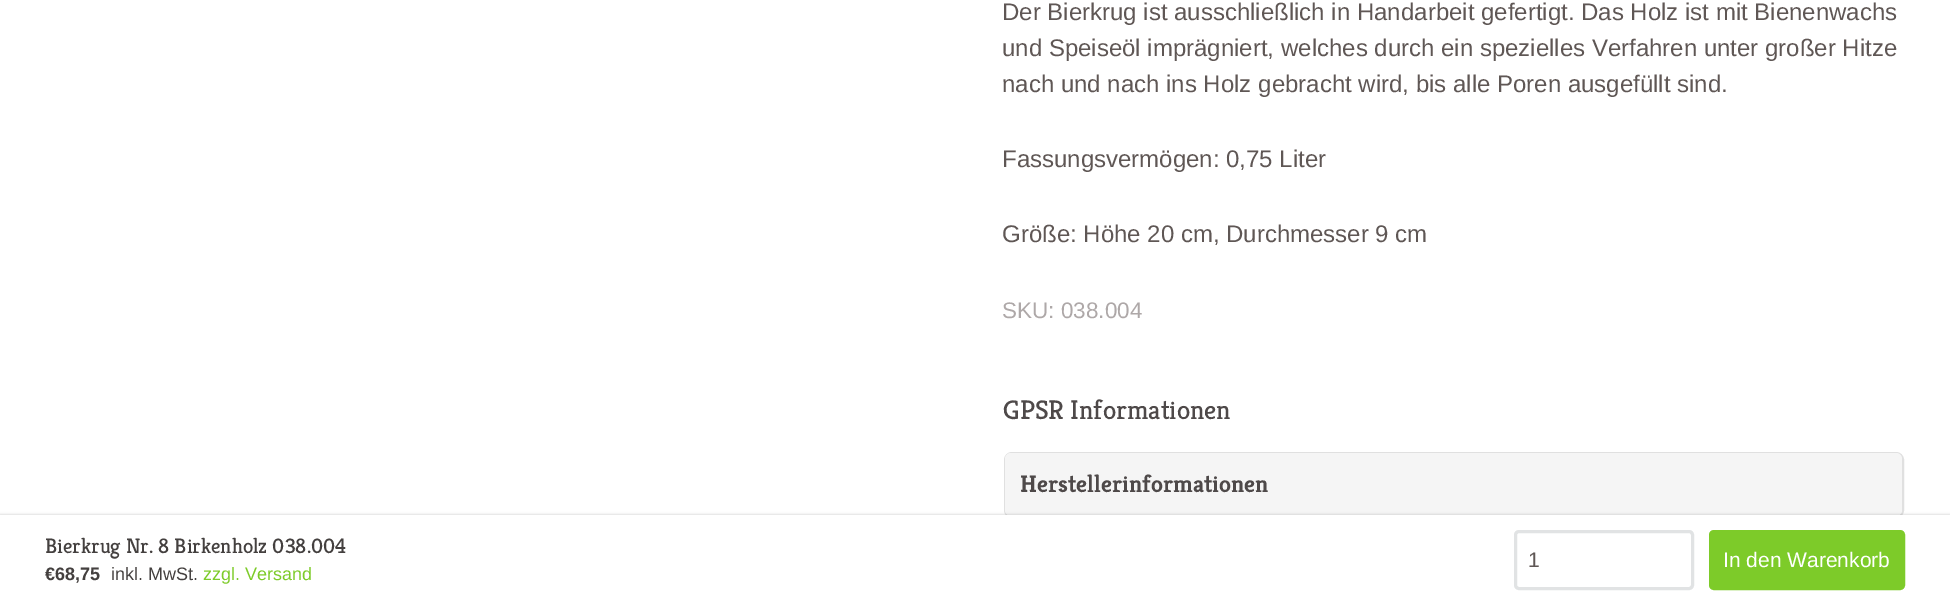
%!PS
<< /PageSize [1950 604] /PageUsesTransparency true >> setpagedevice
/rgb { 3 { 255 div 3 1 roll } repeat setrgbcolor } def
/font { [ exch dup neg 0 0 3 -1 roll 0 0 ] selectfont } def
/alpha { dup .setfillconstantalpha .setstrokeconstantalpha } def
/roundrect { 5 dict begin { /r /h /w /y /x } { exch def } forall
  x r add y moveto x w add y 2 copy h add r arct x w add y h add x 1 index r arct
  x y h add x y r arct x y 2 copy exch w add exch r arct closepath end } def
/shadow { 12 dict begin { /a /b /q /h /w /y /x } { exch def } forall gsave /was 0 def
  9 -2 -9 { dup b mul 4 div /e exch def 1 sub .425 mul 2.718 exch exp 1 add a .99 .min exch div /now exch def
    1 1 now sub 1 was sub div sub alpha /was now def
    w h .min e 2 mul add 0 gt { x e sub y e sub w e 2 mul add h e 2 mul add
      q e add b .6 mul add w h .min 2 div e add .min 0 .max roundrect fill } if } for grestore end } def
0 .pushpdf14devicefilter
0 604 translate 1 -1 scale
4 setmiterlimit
255 255 255 rgb
0 0 1950 604 rectfill
224 224 224 rgb
2 setlinewidth
1005 453 898 64 7 roundrect stroke
245 245 245 rgb
1005 453 897 63 6 roundrect fill
0 0 0 rgb
0 515 1950 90 0 1.5 0.2 shadow
255 255 255 rgb
0 515 1950 89 rectfill
225 227 228 rgb
3 setlinewidth
1515.5 531.5 177 57 3.5 roundrect stroke
125 203 41 rgb
1710.5 531.5 193 57 3.5 roundrect gsave fill grestore
stroke
/LiberationSans-Regular 24 font
95 87 85 rgb
[
  [(Der Bierkrug ist ausschließlich in Handarbeit gefertigt. Das Holz ist mit Bienenwachs) 1002 20]
  [(und Speiseöl imprägniert, welches durch ein spezielles Verfahren unter großer Hitze) 1002 56]
  [(nach und nach ins Holz gebracht wird, bis alle Poren ausgefüllt sind.) 1002 92]
  [(Fassungsvermögen: 0,75 Liter) 1002 167]
  [(Größe: Höhe 20 cm, Durchmesser 9 cm) 1002 242]
] { aload pop moveto show } forall
/LiberationSans-Regular 22.5 font
174 168 168 rgb
1002 318 moveto (SKU: 038.004) show
/Kreon-Regular 27 font
78 73 73 rgb
1003 419 moveto (GPSR Informationen) show
/Kreon-Bold 24 font
1020 492 moveto (Herstellerinformationen) show
/Kreon-Regular 21 font
68 64 63 rgb
45 553 moveto (Bierkrug Nr. 8 Birkenholz 038.004) show
/LiberationSans-Bold 18 font
45 580 moveto (€68,75) show
/LiberationSans-Regular 18 font
111 580 moveto (inkl. MwSt.) show
125 203 41 rgb
203 580 moveto (zzgl. Versand) show
/LiberationSans-Regular 21 font
95 87 85 rgb
1528 567 moveto (1) show
255 255 255 rgb
1723 567 moveto (In den Warenkorb) show
.poppdf14devicefilter showpage
